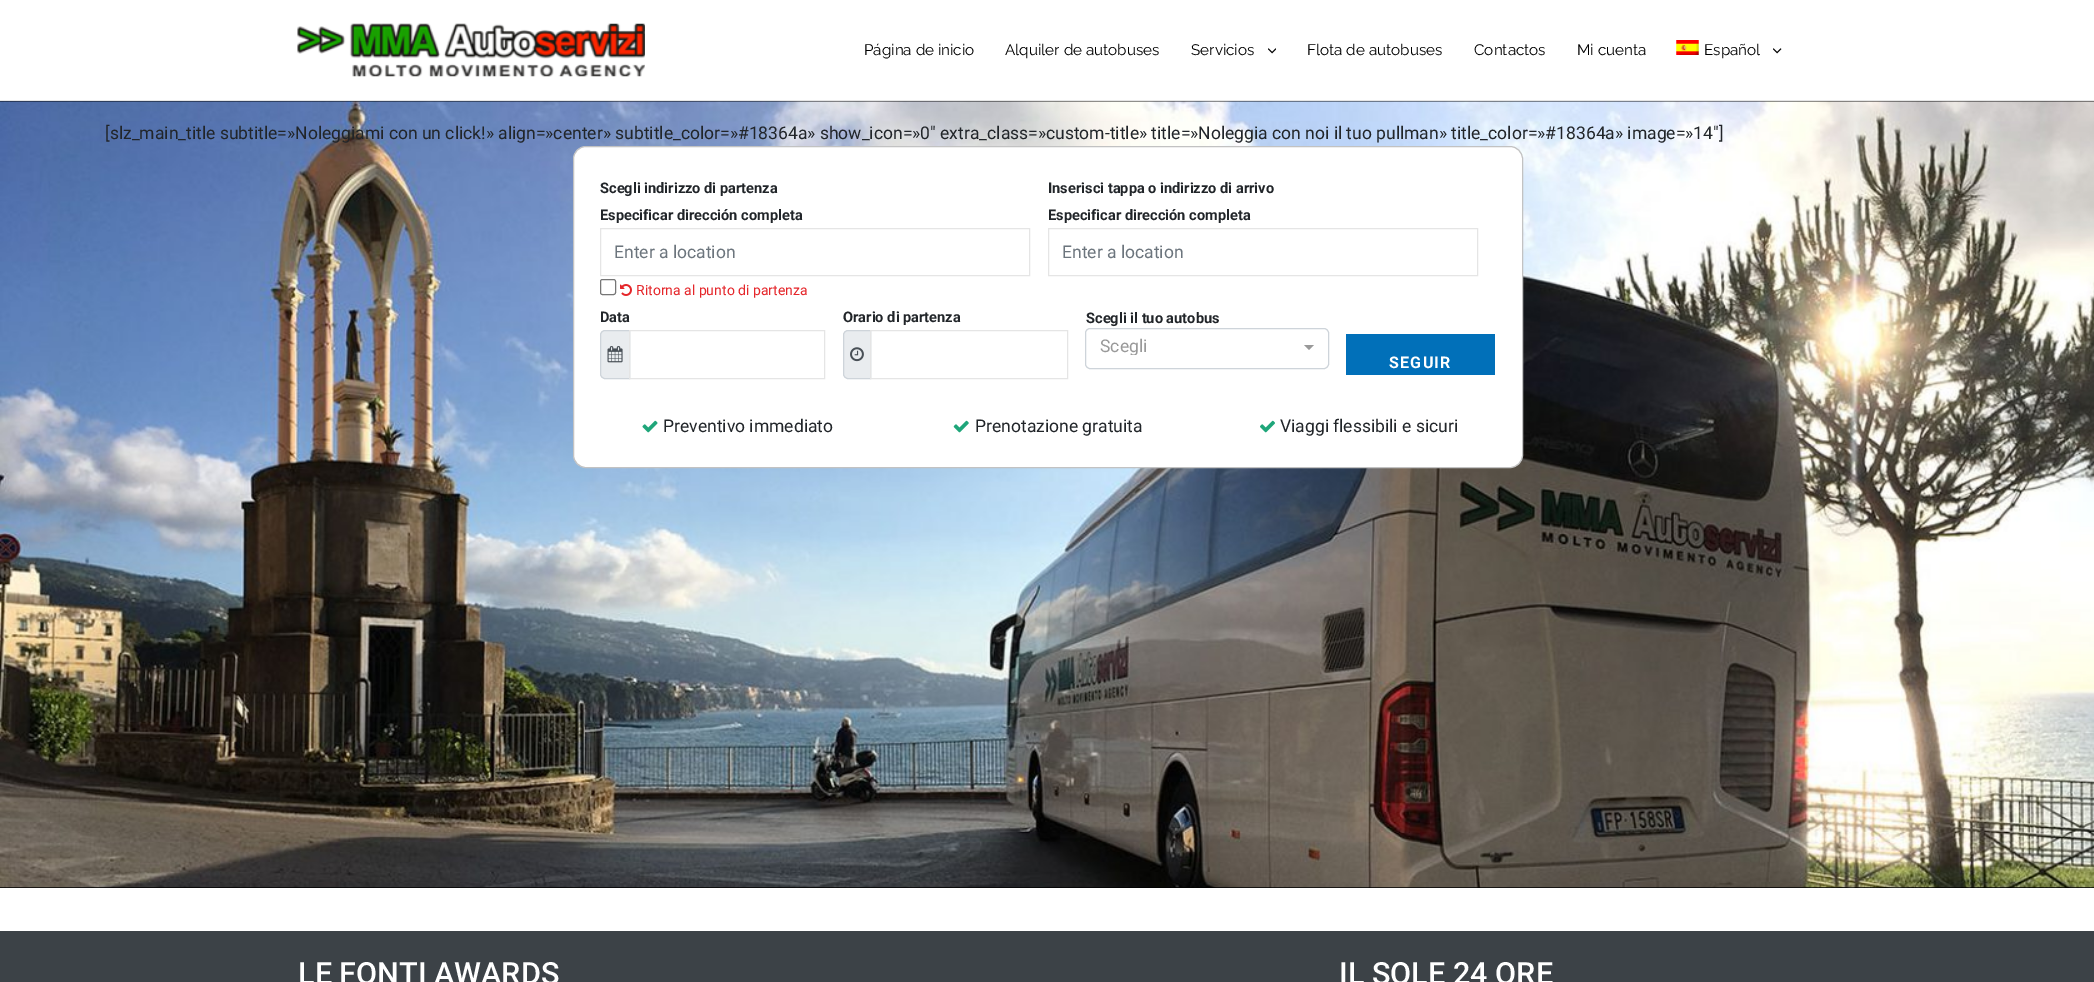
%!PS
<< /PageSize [2094 982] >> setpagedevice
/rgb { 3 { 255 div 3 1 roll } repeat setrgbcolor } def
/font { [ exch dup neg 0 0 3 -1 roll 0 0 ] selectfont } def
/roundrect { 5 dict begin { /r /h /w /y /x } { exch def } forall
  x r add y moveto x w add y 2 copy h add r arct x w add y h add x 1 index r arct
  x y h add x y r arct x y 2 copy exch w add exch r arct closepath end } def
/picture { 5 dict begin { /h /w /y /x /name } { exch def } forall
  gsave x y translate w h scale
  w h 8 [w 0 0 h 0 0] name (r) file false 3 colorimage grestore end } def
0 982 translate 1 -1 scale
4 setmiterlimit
255 255 255 rgb
0 0 2094 982 rectfill
229 229 229 rgb
0 100 2094 1 rectfill
(img/1.rgb) 297 23 348 54 picture
(img/2.rgb) 1268 48 8 6 picture
(img/3.rgb) 1676 40 23 15 picture
(img/4.rgb) 1773 48 9 6 picture
0 0 0 rgb
0 101 2094 787 rectfill
(img/5.rgb) 0 101 2094 787 picture
255 255 255 rgb
573.5 146.5 949 321 12.5 roundrect gsave fill grestore
194 194 194 rgb
stroke
229 229 229 rgb
600.5 228.5 429 47 rectstroke
118 118 118 rgb
600.5 279.5 15 15 2 roundrect stroke
(img/6.rgb) 620 284 12 12 picture
229 229 229 rgb
1048.5 228.5 429 47 rectstroke
233 236 239 rgb
605 330.5 moveto 629.5 330.5 lineto 629.5 378.5 lineto 605 378.5 lineto 602.5 378.5 600.5 376.5 600.5 374 curveto 600.5 335 lineto 600.5 332.5 602.5 330.5 605 330.5 curveto closepath gsave fill grestore
206 212 218 rgb
stroke
(img/7.rgb) 607 346 16 17 picture
229 229 229 rgb
629.5 330.5 195 48 rectstroke
233 236 239 rgb
848 330.5 moveto 870.5 330.5 lineto 870.5 378.5 lineto 848 378.5 lineto 845.5 378.5 843.5 376.5 843.5 374 curveto 843.5 335 lineto 843.5 332.5 845.5 330.5 848 330.5 curveto closepath gsave fill grestore
206 212 218 rgb
stroke
(img/8.rgb) 850 347 14 15 picture
229 229 229 rgb
870.5 330.5 197 48 rectstroke
206 212 218 rgb
1085.5 328.5 243 40 4.5 roundrect stroke
153 153 153 rgb
1304 345 moveto 1314 345 lineto 1309 350 lineto closepath fill
1 112 185 rgb
1346 334 149 41 rectfill
(img/9.rgb) 642 420 16 13 picture
(img/10.rgb) 953 420 16 13 picture
(img/11.rgb) 1260 420 15 13 picture
60 66 71 rgb
0 931 2094 51 rectfill
/Raleway-Regular 15.25 font
0 0 0 rgb
[
  [(Página de inicio) 864 55]
  [(Alquiler de autobuses) 1005 55]
  [(Servicios) 1191 55]
  [(Flota de autobuses) 1307 55]
  [(Contactos) 1474 55]
  [(Mi cuenta) 1577 55]
  [(Español) 1704 55]
] { aload pop moveto show } forall
/Roboto-Regular 17.5 font
33 37 41 rgb
105 139 moveto ([slz_main_title subtitle=»Noleggiami con un click!» align=»center» subtitle_color=»#18364a» show_icon=»0″ extra_class=»custom-title» title=»Noleggia con noi il tuo pullman» title_color=»#18364a» image=»14″]) show
/Roboto-Bold 14.6 font
600 193 moveto (Scegli indirizzo di partenza) show
600 220 moveto (Especificar dirección completa) show
/Roboto-Regular 17.5 font
108 117 125 rgb
614 258 moveto (Enter a location) show
/Roboto-Regular 14 font
229 38 42 rgb
636 295 moveto (Ritorna al punto di partenza) show
/Roboto-Bold 14.6 font
33 37 41 rgb
1048 193 moveto (Inserisci tappa o indirizzo di arrivo) show
1048 220 moveto (Especificar dirección completa) show
/Roboto-Regular 17.5 font
108 117 125 rgb
1062 258 moveto (Enter a location) show
/Roboto-Bold 14.6 font
33 37 41 rgb
[
  [(Data) 600 322]
  [(Orario di partenza) 843 322]
  [(Scegli il tuo autobus) 1086 323]
] { aload pop moveto show } forall
gsave
1100 335 201 20 rectclip
/Roboto-Regular 17.5 font
153 153 153 rgb
1100 352 moveto (Scegli) show
grestore
/Roboto-Bold 16 font
255 255 255 rgb
1389 368 moveto 1.25 0 (SEGUIR) ashow
/Roboto-Regular 17.5 font
33 37 41 rgb
[
  [(Preventivo immediato) 663 432]
  [(Prenotazione gratuita) 975 432]
  [(Viaggi flessibili e sicuri) 1280 432]
] { aload pop moveto show } forall
/Roboto-Medium 30.6 font
255 255 255 rgb
298 984 moveto (LE FONTI AWARDS) show
1339 984 moveto (IL SOLE 24 ORE) show
showpage
